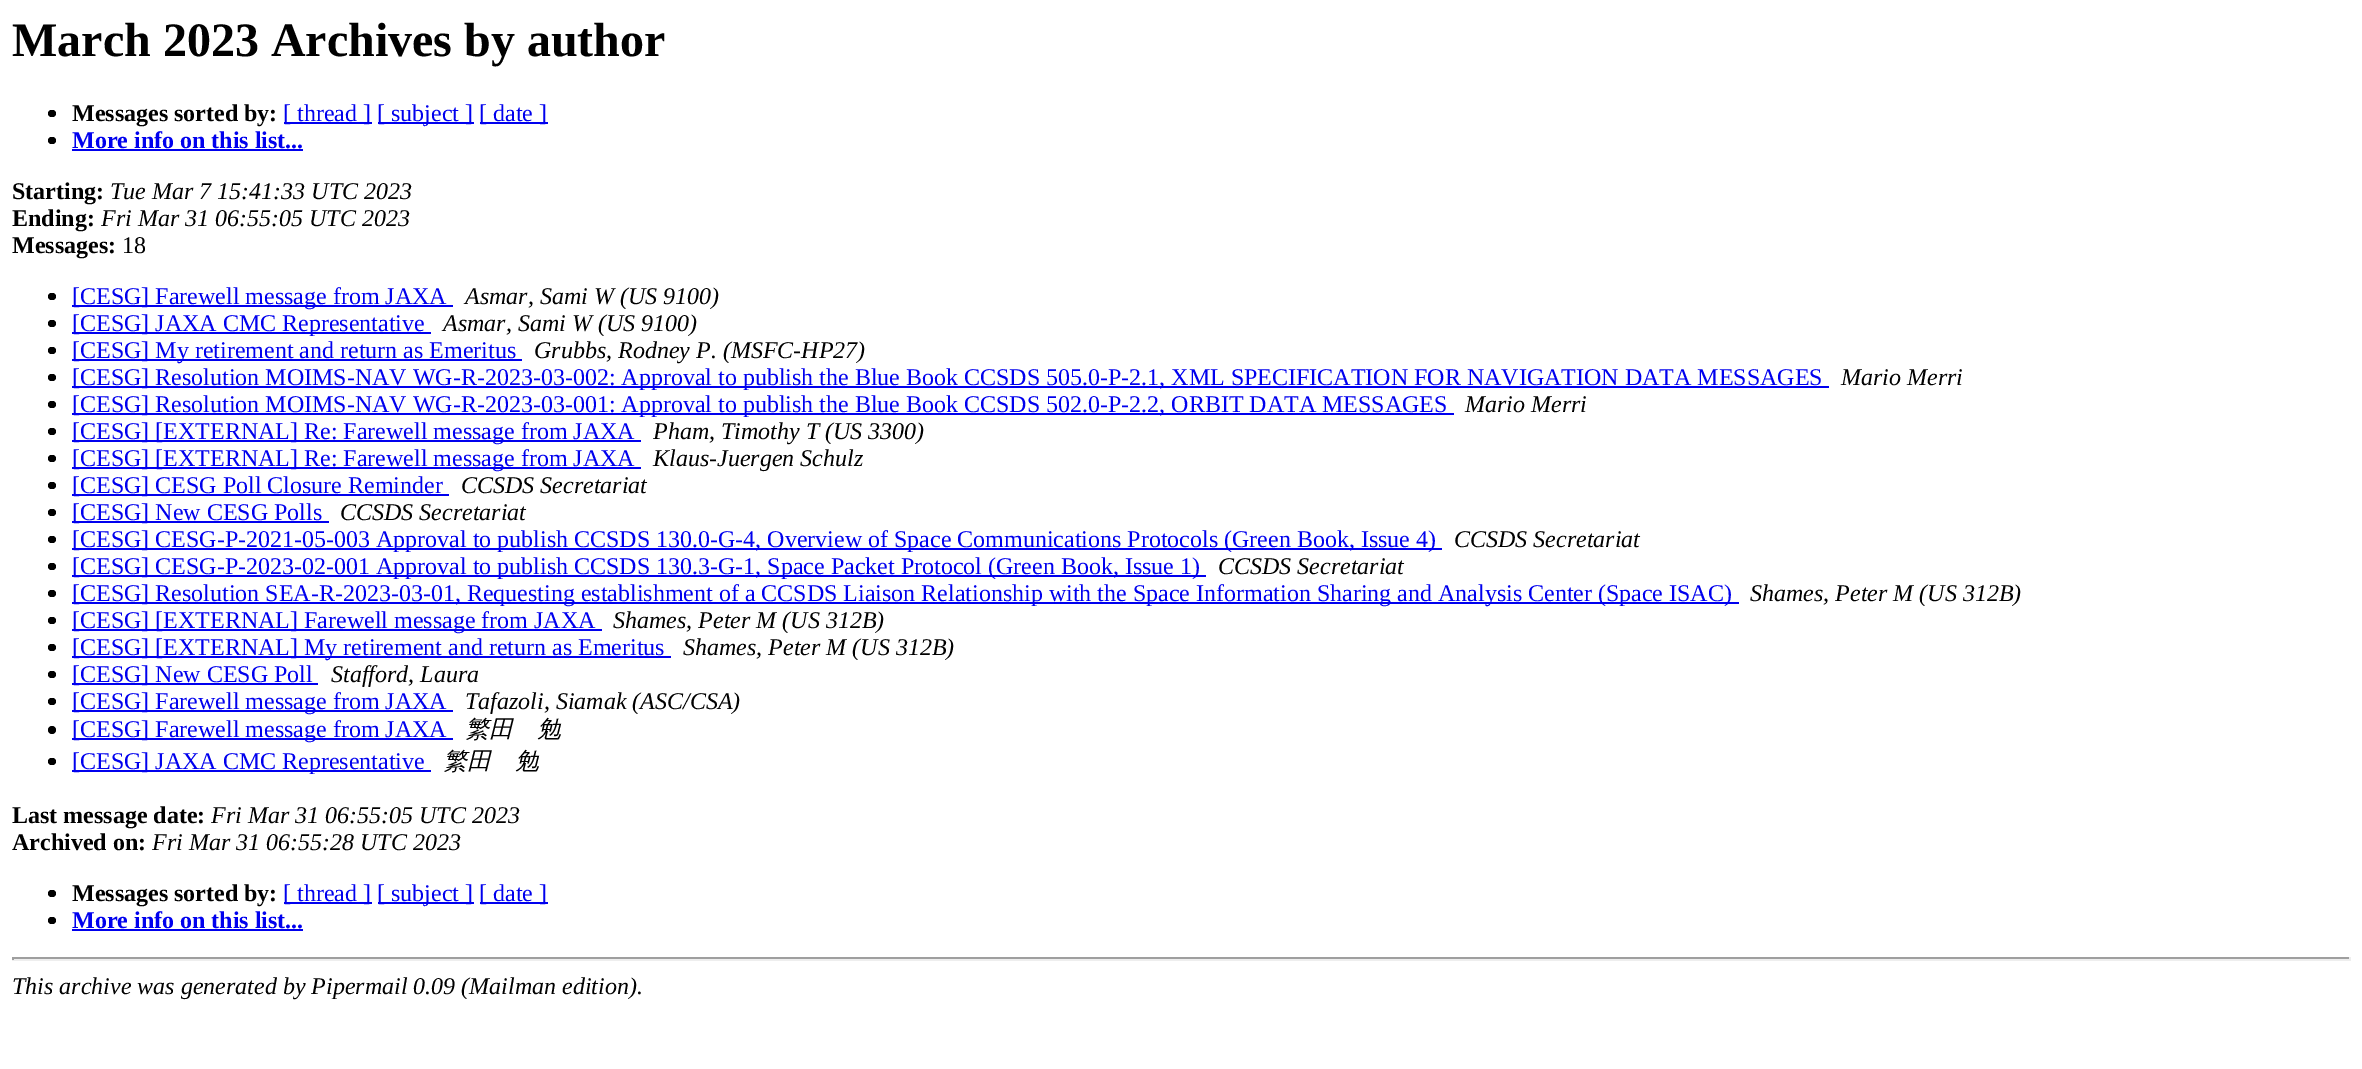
%!PS
<< /PageSize [2362 1069] >> setpagedevice
/rgb { 3 { 255 div 3 1 roll } repeat setrgbcolor } def
/font { [ exch dup neg 0 0 3 -1 roll 0 0 ] selectfont } def
/circle { newpath 0 360 arc closepath } def
/roundrect { 5 dict begin { /r /h /w /y /x } { exch def } forall
  x r add y moveto x w add y 2 copy h add r arct x w add y h add x 1 index r arct
  x y h add x y r arct x y 2 copy exch w add exch r arct closepath end } def
0 1069 translate 1 -1 scale
4 setmiterlimit
255 255 255 rgb
0 0 2362 1069 rectfill
0 0 0 rgb
48 110 8 7 3.5 roundrect fill
[
  [284 122 88 2 0 0 238]
  [378 122 96 2 0 0 238]
  [480 122 68 2 0 0 238]
] { aload pop rgb rectfill } forall
0 0 0 rgb
48 137 8 7 3.5 roundrect fill
0 0 238 rgb
72 149 231 2 rectfill
0 0 0 rgb
48 293 8 7 3.5 roundrect fill
0 0 238 rgb
72 305 381 2 rectfill
0 0 0 rgb
48 320 8 7 3.5 roundrect fill
0 0 238 rgb
72 332 359 2 rectfill
0 0 0 rgb
48 347 8 7 3.5 roundrect fill
0 0 238 rgb
72 359 450 2 rectfill
0 0 0 rgb
48 374 8 7 3.5 roundrect fill
0 0 238 rgb
72 386 1757 2 rectfill
0 0 0 rgb
48 401 8 7 3.5 roundrect fill
0 0 238 rgb
72 413 1382 2 rectfill
0 0 0 rgb
48 428 8 7 3.5 roundrect fill
0 0 238 rgb
72 440 569 2 rectfill
0 0 0 rgb
48 455 8 7 3.5 roundrect fill
0 0 238 rgb
72 467 569 2 rectfill
0 0 0 rgb
48 482 8 7 3.5 roundrect fill
0 0 238 rgb
72 494 377 2 rectfill
0 0 0 rgb
48 509 8 7 3.5 roundrect fill
0 0 238 rgb
72 521 257 2 rectfill
0 0 0 rgb
48 536 8 7 3.5 roundrect fill
0 0 238 rgb
72 548 1370 2 rectfill
0 0 0 rgb
48 563 8 7 3.5 roundrect fill
0 0 238 rgb
72 575 1134 2 rectfill
0 0 0 rgb
48 590 8 7 3.5 roundrect fill
0 0 238 rgb
72 602 1667 2 rectfill
0 0 0 rgb
48 617 8 7 3.5 roundrect fill
0 0 238 rgb
72 629 530 2 rectfill
0 0 0 rgb
48 644 8 7 3.5 roundrect fill
0 0 238 rgb
72 656 599 2 rectfill
0 0 0 rgb
48 671 8 7 3.5 roundrect fill
0 0 238 rgb
72 683 246 2 rectfill
0 0 0 rgb
48 698 8 7 3.5 roundrect fill
0 0 238 rgb
72 710 381 2 rectfill
0 0 0 rgb
52 730 4 circle fill
0 0 238 rgb
72 738 381 2 rectfill
0 0 0 rgb
48 758 8 7 3.5 roundrect fill
0 0 238 rgb
72 770 359 2 rectfill
0 0 0 rgb
48 890 8 7 3.5 roundrect fill
[
  [284 902 88 2 0 0 238]
  [378 902 96 2 0 0 238]
  [480 902 68 2 0 0 238]
] { aload pop rgb rectfill } forall
0 0 0 rgb
48 917 8 7 3.5 roundrect fill
[
  [72 929 231 2 0 0 238]
  [12 957 2339 2 159 159 159]
  [2349 957 2 3 238 238 238]
  [12 959 2339 2 238 238 238]
  [12 957 2 3 159 159 159]
] { aload pop rgb rectfill } forall
/LiberationSerif-Bold 48 font
0 0 0 rgb
12 56 moveto (March 2023 Archives by author) show
/LiberationSerif-Bold 24 font
72 121 moveto (Messages sorted by:) show
/LiberationSerif-Regular 24 font
0 0 238 rgb
[
  [([ thread ]) 283 121]
  [([ subject ]) 377 121]
  [([ date ]) 479 121]
] { aload pop moveto show } forall
/LiberationSerif-Bold 24 font
72 148 moveto (More info on this list...) show
0 0 0 rgb
12 199 moveto (Starting:) show
/LiberationSerif-Italic 24 font
110 199 moveto (Tue Mar 7 15:41:33 UTC 2023) show
/LiberationSerif-Bold 24 font
12 226 moveto (Ending:) show
/LiberationSerif-Italic 24 font
101 226 moveto (Fri Mar 31 06:55:05 UTC 2023) show
/LiberationSerif-Bold 24 font
12 253 moveto (Messages:) show
/LiberationSerif-Regular 24 font
122 253 moveto (18) show
0 0 238 rgb
72 304 moveto ([CESG] Farewell message from JAXA) show
/LiberationSerif-Italic 24 font
0 0 0 rgb
465 304 moveto (Asmar, Sami W \(US 9100\)) show
/LiberationSerif-Regular 24 font
0 0 238 rgb
72 331 moveto ([CESG] JAXA CMC Representative) show
/LiberationSerif-Italic 24 font
0 0 0 rgb
443 331 moveto (Asmar, Sami W \(US 9100\)) show
/LiberationSerif-Regular 24 font
0 0 238 rgb
72 358 moveto ([CESG] My retirement and return as Emeritus) show
/LiberationSerif-Italic 24 font
0 0 0 rgb
534 358 moveto (Grubbs, Rodney P. \(MSFC-HP27\)) show
/LiberationSerif-Regular 24 font
0 0 238 rgb
72 385 moveto ([CESG] Resolution MOIMS-NAV WG-R-2023-03-002: Approval to publish the Blue Book CCSDS 505.0-P-2.1, XML SPECIFICATION FOR NAVIGATION DATA MESSAGES) show
/LiberationSerif-Italic 24 font
0 0 0 rgb
1841 385 moveto (Mario Merri) show
/LiberationSerif-Regular 24 font
0 0 238 rgb
72 412 moveto ([CESG] Resolution MOIMS-NAV WG-R-2023-03-001: Approval to publish the Blue Book CCSDS 502.0-P-2.2, ORBIT DATA MESSAGES) show
/LiberationSerif-Italic 24 font
0 0 0 rgb
1465 412 moveto (Mario Merri) show
/LiberationSerif-Regular 24 font
0 0 238 rgb
72 439 moveto ([CESG] [EXTERNAL] Re: Farewell message from JAXA) show
/LiberationSerif-Italic 24 font
0 0 0 rgb
653 439 moveto (Pham, Timothy T \(US 3300\)) show
/LiberationSerif-Regular 24 font
0 0 238 rgb
72 466 moveto ([CESG] [EXTERNAL] Re: Farewell message from JAXA) show
/LiberationSerif-Italic 24 font
0 0 0 rgb
653 466 moveto (Klaus-Juergen Schulz) show
/LiberationSerif-Regular 24 font
0 0 238 rgb
72 493 moveto ([CESG] CESG Poll Closure Reminder) show
/LiberationSerif-Italic 24 font
0 0 0 rgb
461 493 moveto (CCSDS Secretariat) show
/LiberationSerif-Regular 24 font
0 0 238 rgb
72 520 moveto ([CESG] New CESG Polls) show
/LiberationSerif-Italic 24 font
0 0 0 rgb
340 520 moveto (CCSDS Secretariat) show
/LiberationSerif-Regular 24 font
0 0 238 rgb
72 547 moveto ([CESG] CESG-P-2021-05-003 Approval to publish CCSDS 130.0-G-4, Overview of Space Communications Protocols \(Green Book, Issue 4\)) show
/LiberationSerif-Italic 24 font
0 0 0 rgb
1454 547 moveto (CCSDS Secretariat) show
/LiberationSerif-Regular 24 font
0 0 238 rgb
72 574 moveto ([CESG] CESG-P-2023-02-001 Approval to publish CCSDS 130.3-G-1, Space Packet Protocol \(Green Book, Issue 1\)) show
/LiberationSerif-Italic 24 font
0 0 0 rgb
1218 574 moveto (CCSDS Secretariat) show
/LiberationSerif-Regular 24 font
0 0 238 rgb
72 601 moveto ([CESG] Resolution SEA-R-2023-03-01, Requesting establishment of a CCSDS Liaison Relationship with the Space Information Sharing and Analysis Center \(Space ISAC\)) show
/LiberationSerif-Italic 24 font
0 0 0 rgb
1750 601 moveto (Shames, Peter M \(US 312B\)) show
/LiberationSerif-Regular 24 font
0 0 238 rgb
72 628 moveto ([CESG] [EXTERNAL] Farewell message from JAXA) show
/LiberationSerif-Italic 24 font
0 0 0 rgb
613 628 moveto (Shames, Peter M \(US 312B\)) show
/LiberationSerif-Regular 24 font
0 0 238 rgb
72 655 moveto ([CESG] [EXTERNAL] My retirement and return as Emeritus) show
/LiberationSerif-Italic 24 font
0 0 0 rgb
683 655 moveto (Shames, Peter M \(US 312B\)) show
/LiberationSerif-Regular 24 font
0 0 238 rgb
72 682 moveto ([CESG] New CESG Poll) show
/LiberationSerif-Italic 24 font
0 0 0 rgb
331 682 moveto (Stafford, Laura) show
/LiberationSerif-Regular 24 font
0 0 238 rgb
72 709 moveto ([CESG] Farewell message from JAXA) show
/LiberationSerif-Italic 24 font
0 0 0 rgb
465 709 moveto (Tafazoli, Siamak \(ASC/CSA\)) show
/LiberationSerif-Regular 24 font
0 0 238 rgb
72 737 moveto ([CESG] Farewell message from JAXA) show
/WenQuanYiZenHei-MediumItalic 24 font
0 0 0 rgb
465 737 moveto (繁田　勉) show
/LiberationSerif-Regular 24 font
0 0 238 rgb
72 769 moveto ([CESG] JAXA CMC Representative) show
/WenQuanYiZenHei-MediumItalic 24 font
0 0 0 rgb
443 769 moveto (繁田　勉) show
/LiberationSerif-Bold 24 font
12 823 moveto (Last message date:) show
/LiberationSerif-Italic 24 font
211 823 moveto (Fri Mar 31 06:55:05 UTC 2023) show
/LiberationSerif-Bold 24 font
12 850 moveto (Archived on:) show
/LiberationSerif-Italic 24 font
152 850 moveto (Fri Mar 31 06:55:28 UTC 2023) show
/LiberationSerif-Bold 24 font
72 901 moveto (Messages sorted by:) show
/LiberationSerif-Regular 24 font
0 0 238 rgb
[
  [([ thread ]) 283 901]
  [([ subject ]) 377 901]
  [([ date ]) 479 901]
] { aload pop moveto show } forall
/LiberationSerif-Bold 24 font
72 928 moveto (More info on this list...) show
/LiberationSerif-Italic 24 font
0 0 0 rgb
12 994 moveto (This archive was generated by Pipermail 0.09 \(Mailman edition\).) show
showpage
